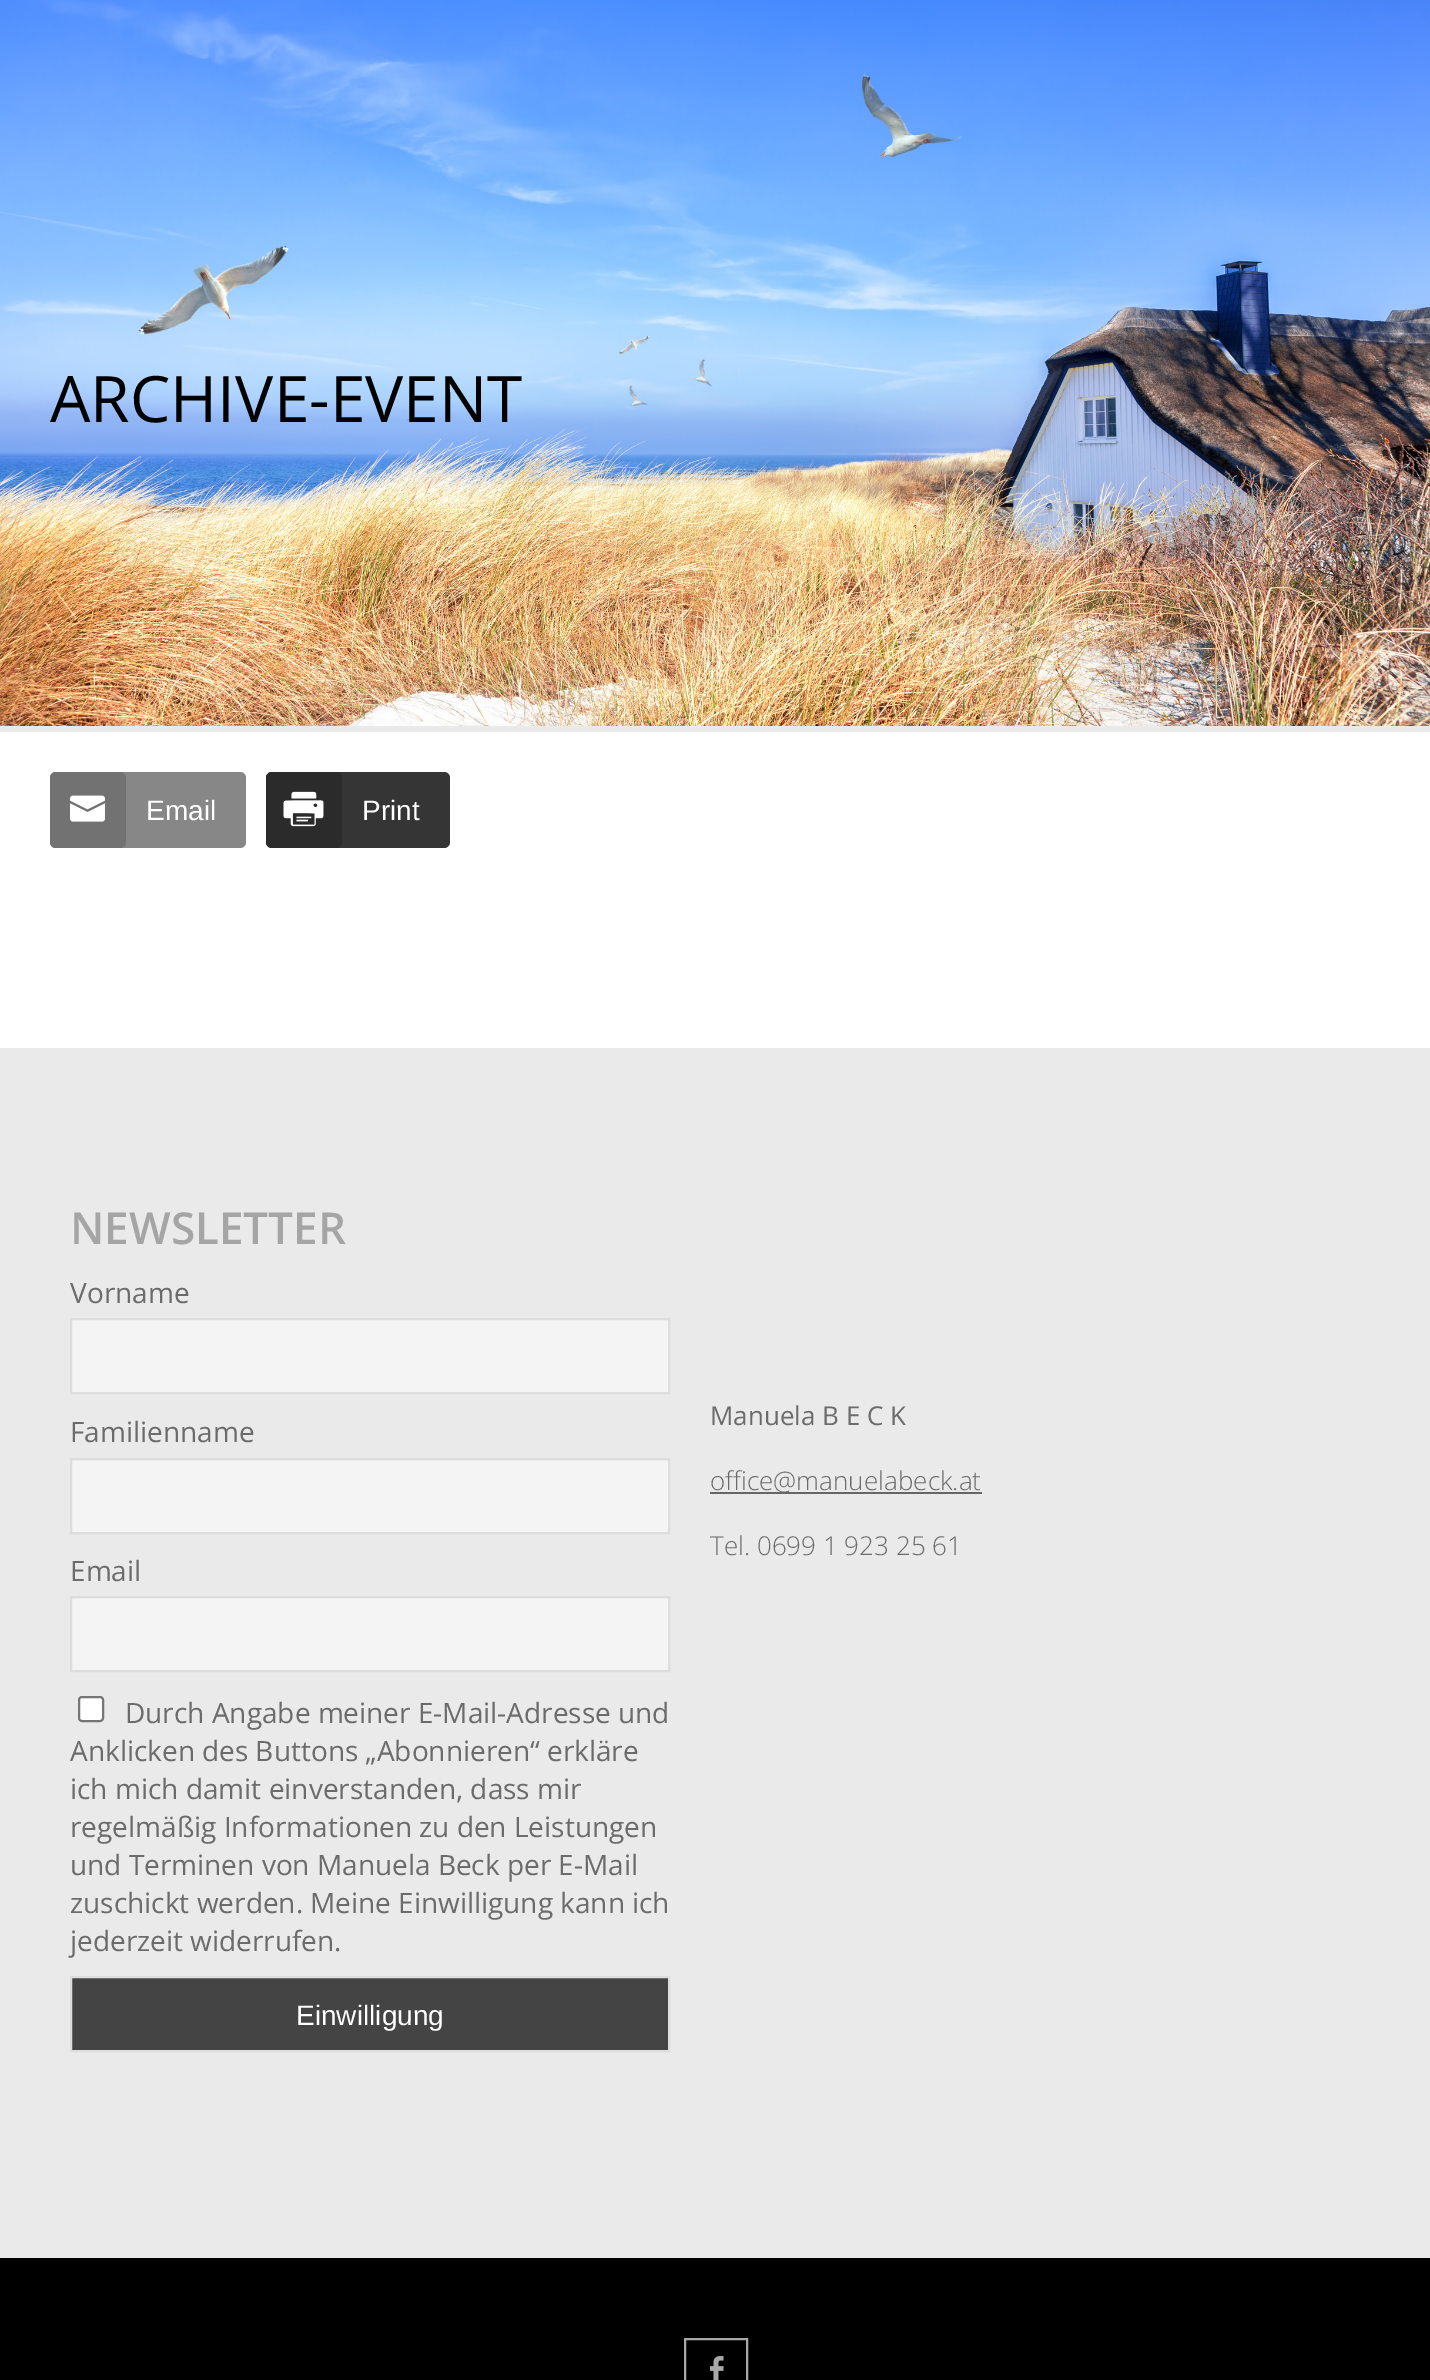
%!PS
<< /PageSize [1430 2380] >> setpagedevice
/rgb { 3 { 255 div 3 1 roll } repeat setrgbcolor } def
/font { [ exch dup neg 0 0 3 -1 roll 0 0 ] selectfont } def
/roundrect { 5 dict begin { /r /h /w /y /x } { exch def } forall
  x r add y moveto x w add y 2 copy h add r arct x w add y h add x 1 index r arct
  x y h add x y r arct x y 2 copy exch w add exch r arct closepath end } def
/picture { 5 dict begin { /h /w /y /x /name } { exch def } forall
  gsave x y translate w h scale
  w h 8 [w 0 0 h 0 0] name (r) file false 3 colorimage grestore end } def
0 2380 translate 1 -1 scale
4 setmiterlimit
0 0 0 rgb
0 0 1430 2380 rectfill
(img/1.rgb) 0 0 1430 726 picture
255 255 255 rgb
0 732 1430 316 rectfill
234 234 234 rgb
0 726 1430 6 rectfill
135 135 135 rgb
50 772 196 76 6 roundrect fill
114 114 114 rgb
50 772 76 76 6 roundrect fill
(img/2.rgb) 70 795 35 27 picture
53 53 53 rgb
266 772 184 76 6 roundrect fill
43 43 43 rgb
266 772 76 76 6 roundrect fill
(img/3.rgb) 283 791 41 36 picture
234 234 234 rgb
0 1048 1430 1210 rectfill
244 244 244 rgb
71 1319 moveto 669 1319 lineto 669 1393 lineto 71 1393 lineto closepath gsave fill grestore
221 221 221 rgb
2 setlinewidth
stroke
244 244 244 rgb
71 1459 moveto 669 1459 lineto 669 1533 lineto 71 1533 lineto closepath gsave fill grestore
221 221 221 rgb
stroke
244 244 244 rgb
71 1597 moveto 669 1597 lineto 669 1671 lineto 71 1671 lineto closepath gsave fill grestore
221 221 221 rgb
stroke
255 255 255 rgb
79 1697 24 24 3 roundrect gsave fill grestore
118 118 118 rgb
stroke
68 68 68 rgb
71 1977 moveto 669 1977 lineto 669 2051 lineto 71 2051 lineto closepath gsave fill grestore
221 221 221 rgb
stroke
102 102 102 rgb
710 1492 272 2 rectfill
168 168 168 rgb
685 2339 62 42 rectstroke
(img/4.rgb) 710 2356 14 24 picture
/OpenSans-Regular 64 font
0 0 0 rgb
50 422 moveto (ARCHIVE-EVENT) show
/LiberationSans-Regular 28 font
255 255 255 rgb
146 820 moveto (Email) show
362 820 moveto (Print) show
/OpenSans-SemiBold 44 font
165 165 165 rgb
70 1244 moveto (NEWSLETTER) show
/OpenSans-Regular 28 font
107 107 107 rgb
[
  [(Vorname) 70 1303]
  [(Familienname) 70 1442]
  [(Email) 70 1581]
  [(Durch Angabe meiner E-Mail-Adresse und) 125 1723]
  [(Anklicken des Buttons „Abonnieren“ erkläre) 70 1761]
  [(ich mich damit einverstanden, dass mir) 70 1799]
  [(regelmäßig Informationen zu den Leistungen) 70 1837]
  [(und Terminen von Manuela Beck per E-Mail) 70 1875]
  [(zuschickt werden. Meine Einwilligung kann ich) 70 1913]
  [(jederzeit widerrufen.) 70 1951]
] { aload pop moveto show } forall
/LiberationSans-Regular 28 font
255 255 255 rgb
296 2025 moveto (Einwilligung) show
/OpenSans-Regular 26 font
107 107 107 rgb
710 1425 moveto (Manuela B E C K) show
/OpenSans-Light 26 font
710 1490 moveto (office@manuelabeck.at) show
710 1555 moveto (Tel. 0699 1 923 25 61) show
showpage
